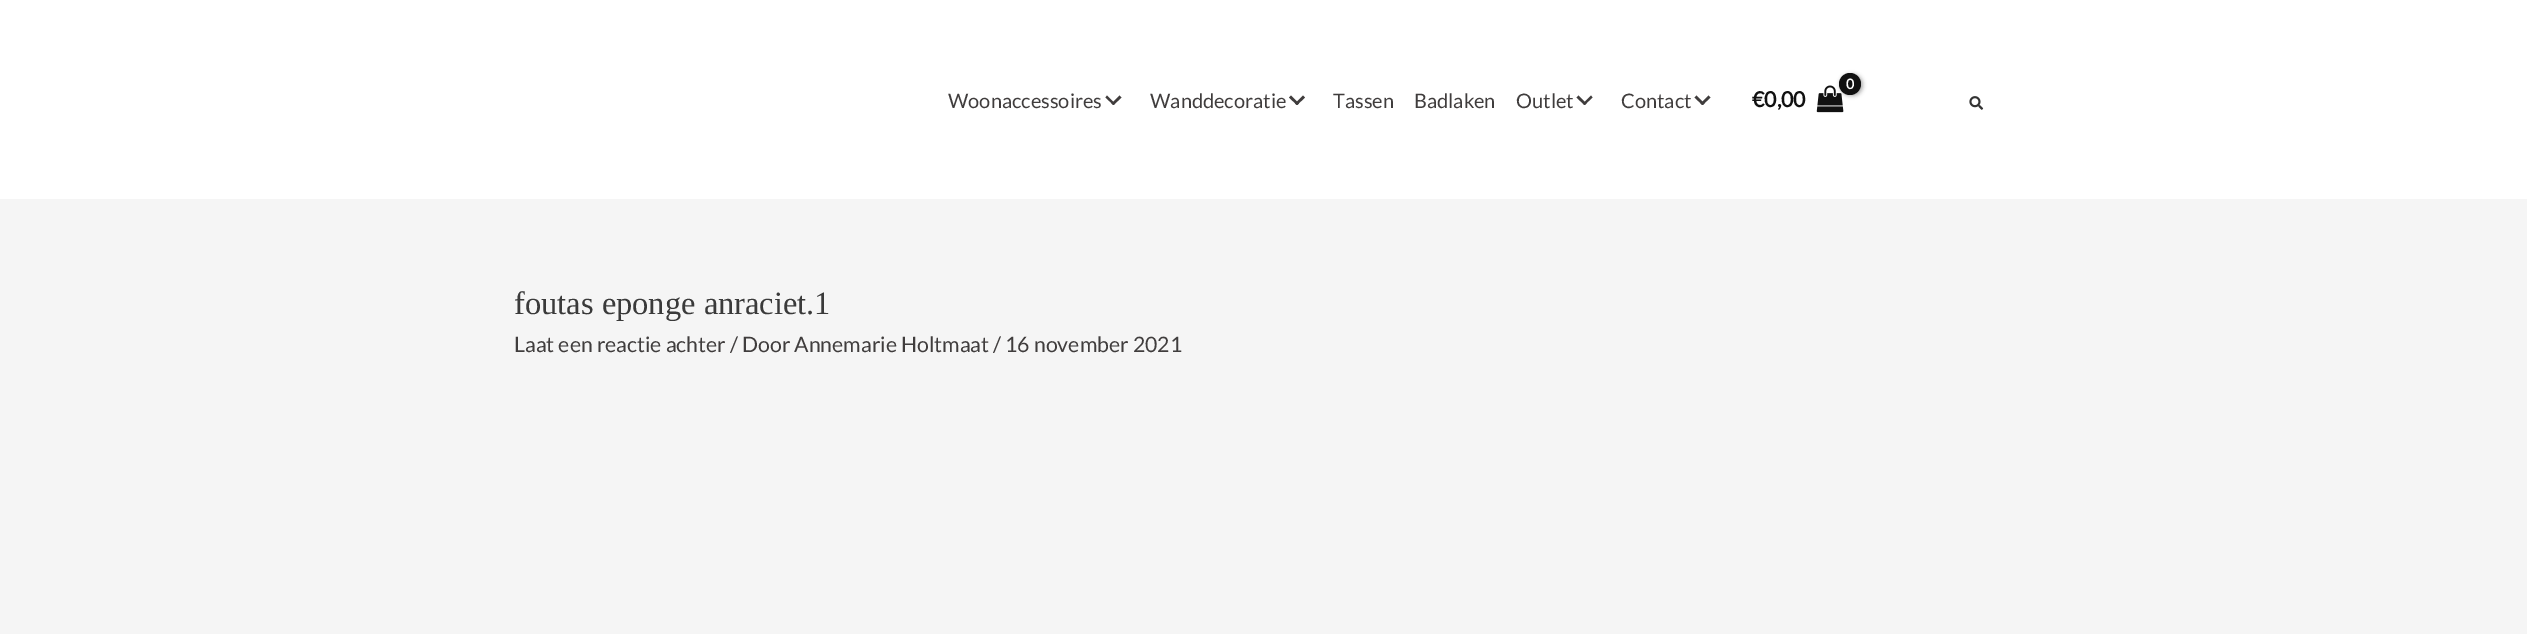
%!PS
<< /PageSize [2527 634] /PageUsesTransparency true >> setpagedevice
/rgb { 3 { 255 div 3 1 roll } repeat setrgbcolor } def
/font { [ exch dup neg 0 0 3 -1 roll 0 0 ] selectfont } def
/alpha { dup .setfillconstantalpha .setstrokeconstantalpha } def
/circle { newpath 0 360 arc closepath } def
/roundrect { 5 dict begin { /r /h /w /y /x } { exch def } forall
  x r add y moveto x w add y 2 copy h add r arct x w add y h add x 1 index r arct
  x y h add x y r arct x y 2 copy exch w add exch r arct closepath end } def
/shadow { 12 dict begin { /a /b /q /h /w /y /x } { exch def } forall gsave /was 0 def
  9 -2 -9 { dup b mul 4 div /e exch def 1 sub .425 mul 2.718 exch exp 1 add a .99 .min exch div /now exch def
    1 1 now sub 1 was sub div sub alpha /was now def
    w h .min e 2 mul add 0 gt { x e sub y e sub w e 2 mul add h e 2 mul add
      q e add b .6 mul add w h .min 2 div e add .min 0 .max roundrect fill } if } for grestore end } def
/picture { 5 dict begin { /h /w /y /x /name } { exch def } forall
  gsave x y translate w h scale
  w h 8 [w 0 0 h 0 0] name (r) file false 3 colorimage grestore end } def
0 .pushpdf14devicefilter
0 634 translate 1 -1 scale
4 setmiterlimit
245 245 245 rgb
0 0 2527 634 rectfill
255 255 255 rgb
0 0 2527 199 rectfill
64 61 61 rgb
1119.5 95.5 moveto 1121.5 97.5 lineto 1113.5 105 lineto 1111.5 103.5 lineto closepath fill
1107 95.5 moveto 1115 103.5 lineto 1113.5 105 lineto 1105.5 97.5 lineto closepath fill
1303 95.5 moveto 1305 97.5 lineto 1297 105 lineto 1295 103.5 lineto closepath fill
1291 95.5 moveto 1299 103.5 lineto 1297 105 lineto 1289 97.5 lineto closepath fill
1591 95.5 moveto 1592.5 97.5 lineto 1584.5 105 lineto 1583 103.5 lineto closepath fill
1578.5 95.5 moveto 1586.5 103.5 lineto 1584.5 105 lineto 1576.5 97.5 lineto closepath fill
1708.5 95.5 moveto 1710.5 97.5 lineto 1702.5 105 lineto 1700.5 103.5 lineto closepath fill
1696.5 95.5 moveto 1704.5 103.5 lineto 1702.5 105 lineto 1694.5 97.5 lineto closepath fill
(img/1.rgb) 1816 85 28 28 picture
0 0 0 rgb
1840 74 23 22 11 2 0.3 shadow
17 17 17 rgb
1850 84 11 circle fill
(img/2.rgb) 1969 96 15 14 picture
/Lato-Regular 20 font
64 61 61 rgb
[
  [(Woonaccessoires) 948 108]
  [(Wanddecoratie) 1150 108]
  [(Tassen) 1333 108]
  [(Badlaken) 1414 108]
  [(Outlet) 1516 108]
  [(Contact) 1621 108]
] { aload pop moveto show } forall
/Lato-Bold 14 font
255 255 255 rgb
1846 89 moveto -1 0 (0) ashow
/Lato-Bold 21.25 font
17 17 17 rgb
1752 107 moveto (€0,00) show
/LiberationSerif-Regular 32.5 font
58 58 58 rgb
514 314 moveto (foutas eponge anraciet.1) show
/Lato-Regular 21.25 font
64 61 61 rgb
514 352 moveto (Laat een reactie achter / Door Annemarie Holtmaat / 16 november 2021) show
.poppdf14devicefilter showpage
